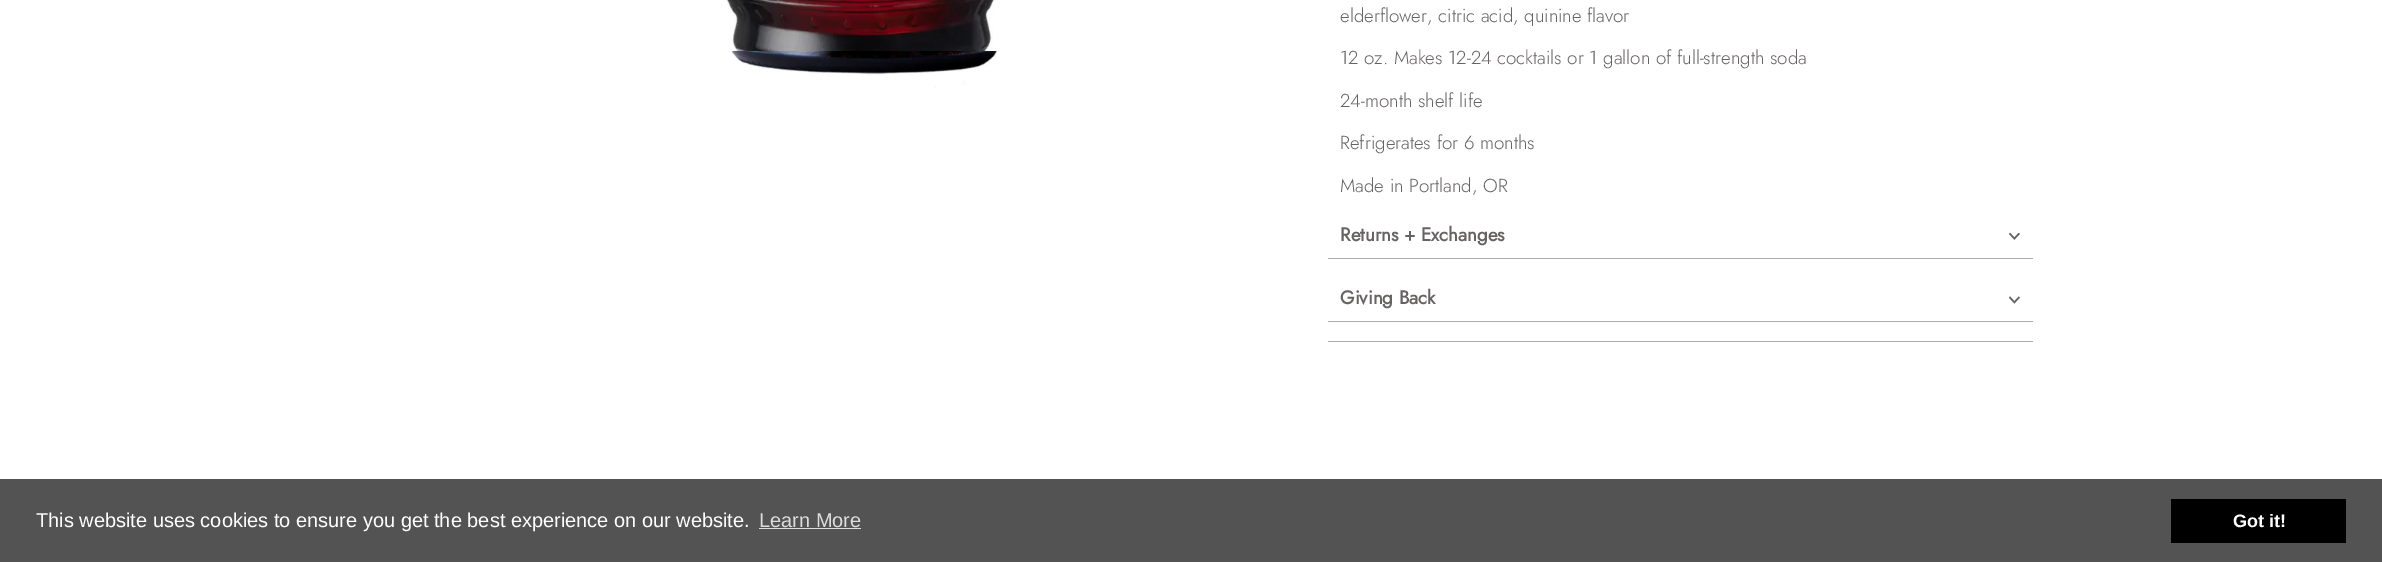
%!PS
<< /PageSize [2382 562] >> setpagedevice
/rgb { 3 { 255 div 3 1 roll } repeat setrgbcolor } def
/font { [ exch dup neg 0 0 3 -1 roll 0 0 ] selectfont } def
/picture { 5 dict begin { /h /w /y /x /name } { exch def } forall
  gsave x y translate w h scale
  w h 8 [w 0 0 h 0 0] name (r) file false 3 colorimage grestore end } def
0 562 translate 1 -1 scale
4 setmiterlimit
255 255 255 rgb
0 0 2382 562 rectfill
(img/1.rgb) 726 0 271 88 picture
173 173 173 rgb
1328 341 705 1 rectfill
1328 258 705 1 rectfill
(img/2.rgb) 2009 233 11 7 picture
1328 321 705 1 rectfill
(img/3.rgb) 2009 296 11 8 picture
[
  [0 479 2382 83 83 83 83]
  [759 528 102 1 221 221 221]
  [2171 499 175 44 0 0 0]
] { aload pop rgb rectfill } forall
/Jost-Light 18.75 font
103 99 99 rgb
[
  [(elderflower, citric acid, quinine flavor) 1340 22]
  [(12 oz. Makes 12-24 cocktails or 1 gallon of full-strength soda) 1340 64]
  [(24-month shelf life) 1340 107]
  [(Refrigerates for 6 months) 1340 149]
  [(Made in Portland, OR) 1340 192]
] { aload pop moveto show } forall
/Jost-Bold 18.75 font
1340 241 moveto (Returns + Exchanges) show
1340 304 moveto (Giving Back) show
/LiberationSans-Regular 20 font
255 255 255 rgb
36 527 moveto (This website uses cookies to ensure you get the best experience on our website.) show
221 221 221 rgb
759 527 moveto (Learn More) show
/LiberationSans-Bold 18 font
255 255 255 rgb
2233 527 moveto (Got it!) show
showpage
